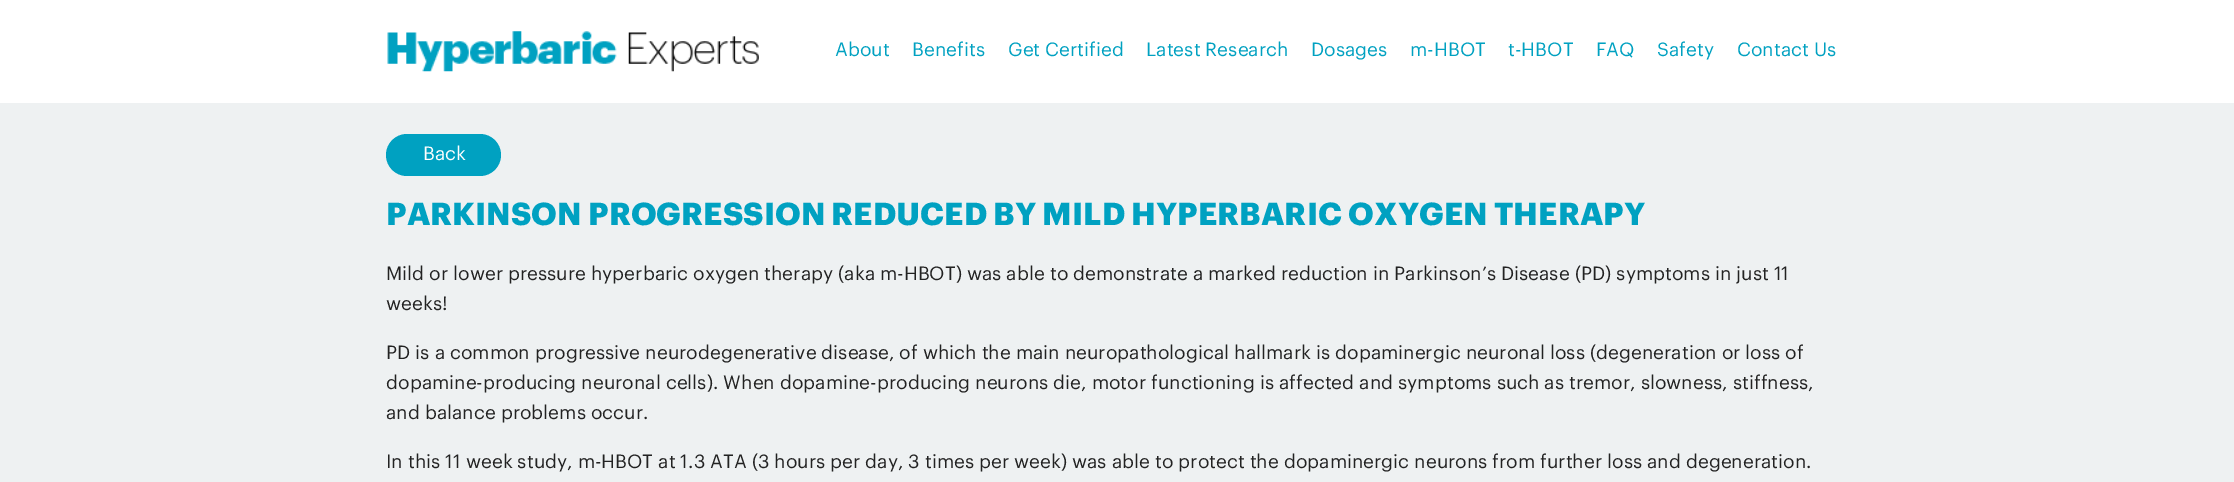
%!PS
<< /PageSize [2234 482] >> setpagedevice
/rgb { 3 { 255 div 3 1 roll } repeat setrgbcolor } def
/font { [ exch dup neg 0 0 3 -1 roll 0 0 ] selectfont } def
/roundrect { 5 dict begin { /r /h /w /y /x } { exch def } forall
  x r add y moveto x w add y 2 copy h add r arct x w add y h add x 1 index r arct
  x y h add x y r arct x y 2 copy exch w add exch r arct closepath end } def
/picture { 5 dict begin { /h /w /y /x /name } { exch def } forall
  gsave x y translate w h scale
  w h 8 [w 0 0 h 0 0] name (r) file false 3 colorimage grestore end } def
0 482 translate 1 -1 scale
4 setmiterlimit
238 241 242 rgb
0 0 2234 482 rectfill
255 255 255 rgb
0 0 2234 103 rectfill
(img/1.rgb) 387 31 372 41 picture
0 161 193 rgb
386 134 115 42 21 roundrect fill
/Graphik-Regular 18.75 font
[
  [(About) 835 56]
  [(Benefits) 912 56]
  [(Get Certified) 1008 56]
  [(Latest Research) 1146 56]
  [(Dosages) 1311 56]
  [(m-HBOT) 1410 56]
  [(t-HBOT) 1508 56]
  [(FAQ) 1596 56]
  [(Safety) 1657 56]
  [(Contact Us) 1737 56]
] { aload pop moveto show } forall
255 255 255 rgb
423 160 moveto (Back) show
/Graphik-Bold 31.25 font
0 161 193 rgb
386 225 moveto (PARKINSON PROGRESSION REDUCED BY MILD HYPERBARIC OXYGEN THERAPY) show
/Graphik-Regular 18.75 font
34 34 34 rgb
[
  [(Mild or lower pressure hyperbaric oxygen therapy \(aka m-HBOT\) was able to demonstrate a marked reduction in Parkinson’s Disease \(PD\) symptoms in just 11) 386 280]
  [(weeks!) 386 310]
  [(PD is a common progressive neurodegenerative disease, of which the main neuropathological hallmark is dopaminergic neuronal loss \(degeneration or loss of) 386 359]
  [(dopamine-producing neuronal cells\). When dopamine-producing neurons die, motor functioning is affected and symptoms such as tremor, slowness, stiffness,) 386 389]
  [(and balance problems occur.) 386 419]
  [(In this 11 week study, m-HBOT at 1.3 ATA \(3 hours per day, 3 times per week\) was able to protect the dopaminergic neurons from further loss and degeneration.) 386 468]
] { aload pop moveto show } forall
showpage
